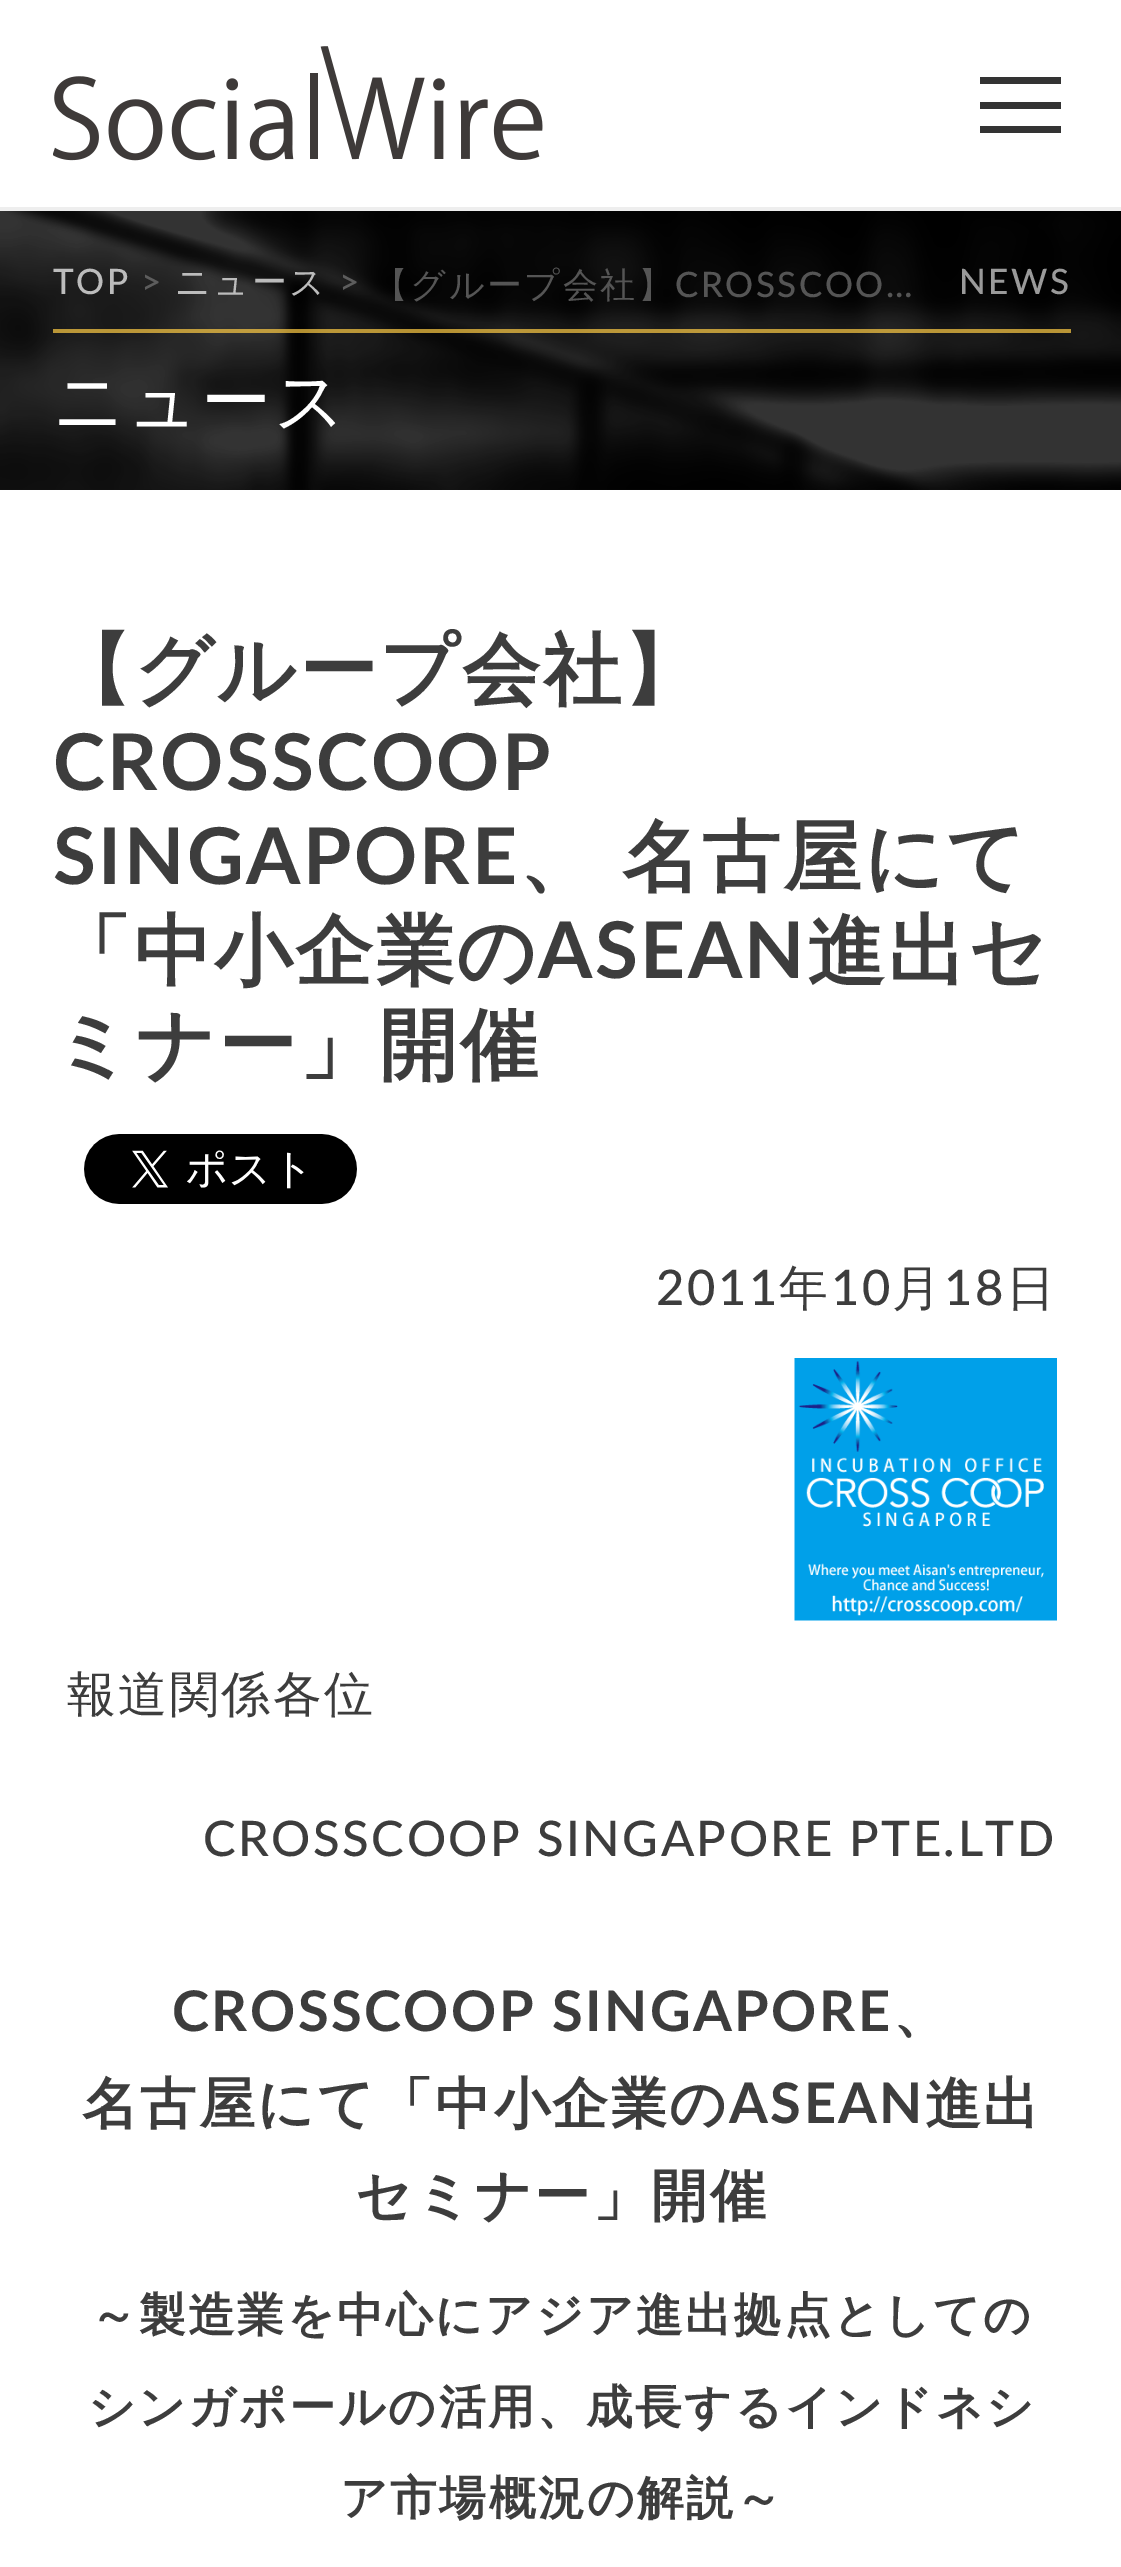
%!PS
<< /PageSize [1121 2567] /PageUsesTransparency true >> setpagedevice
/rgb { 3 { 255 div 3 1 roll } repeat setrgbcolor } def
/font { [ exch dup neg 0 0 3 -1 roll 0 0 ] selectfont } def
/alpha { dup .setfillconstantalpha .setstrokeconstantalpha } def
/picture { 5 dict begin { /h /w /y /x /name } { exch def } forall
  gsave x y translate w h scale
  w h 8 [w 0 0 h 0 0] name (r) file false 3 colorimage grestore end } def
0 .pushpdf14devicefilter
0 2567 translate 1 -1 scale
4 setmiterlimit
255 255 255 rgb
0 0 1121 2567 rectfill
238 238 238 rgb
0 207 1121 4 rectfill
(img/1.rgb) 53 46 490 115 picture
[
  [980 77 81 7 51 51 51]
  [980 102 81 7 51 51 51]
  [980 126 81 7 51 51 51]
] { aload pop rgb rectfill } forall
(img/2.rgb) 0 211 1121 279 picture
0.7 alpha
254 203 68 rgb
53 329 1018 4 rectfill
1 alpha
(img/3.rgb) 84 1134 273 70 picture
(img/4.rgb) 794 1358 263 263 picture
/Lato-Medium 35 font
188 188 188 rgb
53 294 moveto 2.45 0 (TOP) ashow
93 93 93 rgb
141 294 moveto 2.45 0 (>) ashow
/WenQuanYiZenHei-Medium 35 font
188 188 188 rgb
175 294 moveto 2.45 0 (ニュース) ashow
/Lato-Medium 35 font
93 93 93 rgb
339 294 moveto 2.45 0 (>) ashow
/WenQuanYiZenHei-Medium 35 font
85 85 85 rgb
373 297 moveto 2.45 0 (【グループ会社】) ashow
/Lato-Medium 35 font
675 297 moveto 2.45 0 (CROSSCOO…) ashow
154 154 154 rgb
959 294 moveto 2.45 0 (NEWS) ashow
/WenQuanYiZenHei-Medium 70 font
255 255 255 rgb
53 425 moveto 2.45 0 (ニュース) ashow
/WenQuanYiZenHei-Bold 78.25 font
61 61 61 rgb
53 697 moveto 2.45 0 (【グループ会社】) ashow
/Lato-Bold 78.25 font
53 790 moveto 2.45 0 (CROSSCOOP) ashow
53 884 moveto 2.45 0 (SINGAPORE) ashow
/WenQuanYiZenHei-Bold 78.25 font
519 884 moveto -4 0 32 2.45 0 (、 名古屋にて) awidthshow
53 978 moveto 2.45 0 (「中小企業の) ashow
/Lato-Bold 78.25 font
538 978 moveto 2.45 0 (ASEAN) ashow
/WenQuanYiZenHei-Bold 78.25 font
807 978 moveto 2.45 0 (進出セ) ashow
53 1072 moveto 2.45 0 (ミナー」開催) ashow
/Lato-Medium 49 font
656 1305 moveto 2.45 0 (2011) ashow
/WenQuanYiZenHei-Medium 49 font
779 1305 moveto 2.45 0 (年) ashow
/Lato-Medium 49 font
831 1305 moveto 2.45 0 (10) ashow
/WenQuanYiZenHei-Medium 49 font
892 1305 moveto 2.45 0 (月) ashow
/Lato-Medium 49 font
944 1305 moveto 2.45 0 (18) ashow
/WenQuanYiZenHei-Medium 49 font
1006 1305 moveto 2.45 0 (日) ashow
67 1711 moveto 2.45 0 (報道関係各位) ashow
/Lato-Medium 49 font
203 1856 moveto 2.45 0 (CROSSCOOP SINGAPORE PTE.LTD) ashow
/Lato-Bold 56 font
172 2031 moveto 2.45 0 (CROSSCOOP SINGAPORE) ashow
/WenQuanYiZenHei-Bold 56 font
893 2031 moveto 2.45 0 (、) ashow
82 2123 moveto 2.45 0 (名古屋にて「中小企業の) ashow
/Lato-Bold 56 font
729 2123 moveto 2.45 0 (ASEAN) ashow
/WenQuanYiZenHei-Bold 56 font
925 2123 moveto 2.45 0 (進出) ashow
355 2215 moveto 2.45 0 (セミナー」開催) ashow
/WenQuanYiZenHei-Bold 46.7 font
90 2331 moveto 2.45 0 (～製造業を中心にアジア進出拠点としての) ashow
88 2423 moveto 2.45 0 (シンガポールの活用、成長するインドネシ) ashow
340 2514 moveto 2.45 0 (ア市場概況の解説～) ashow
.poppdf14devicefilter showpage
